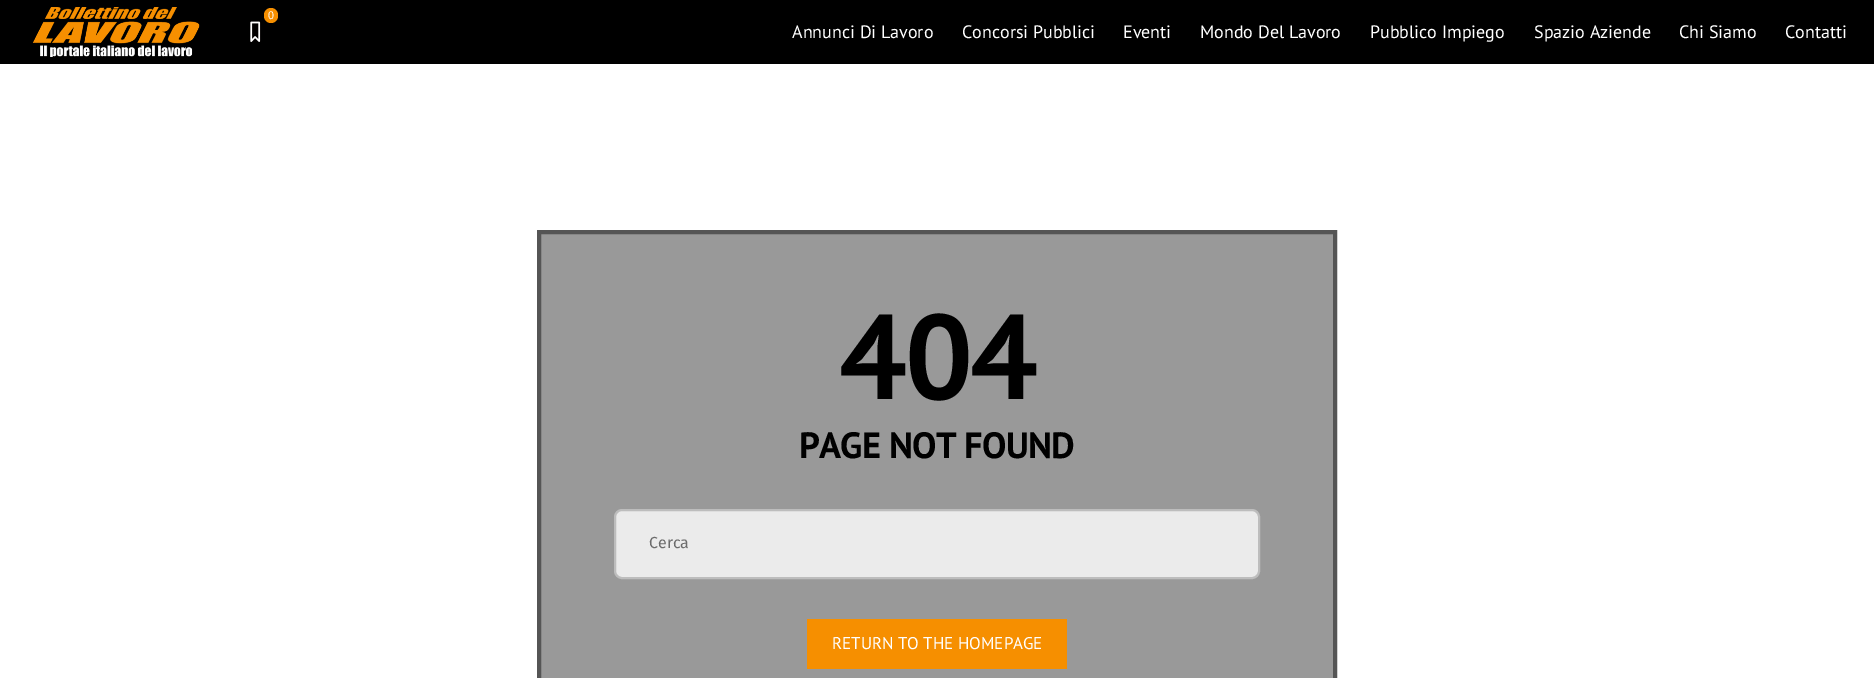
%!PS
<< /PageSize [1874 678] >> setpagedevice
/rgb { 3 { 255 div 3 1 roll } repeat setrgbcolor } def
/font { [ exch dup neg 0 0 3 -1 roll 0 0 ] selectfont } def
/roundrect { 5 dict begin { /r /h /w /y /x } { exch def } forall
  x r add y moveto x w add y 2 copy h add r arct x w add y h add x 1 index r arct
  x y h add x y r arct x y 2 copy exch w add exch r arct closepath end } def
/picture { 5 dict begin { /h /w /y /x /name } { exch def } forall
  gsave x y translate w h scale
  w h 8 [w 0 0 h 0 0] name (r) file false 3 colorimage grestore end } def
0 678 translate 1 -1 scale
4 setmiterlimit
255 255 255 rgb
0 0 1874 678 rectfill
0 0 0 rgb
0 0 1874 64 rectfill
(img/1.rgb) 32 7 168 50 picture
246 143 0 rgb
264 8 14 15 7 roundrect fill
(img/2.rgb) 250 21 11 21 picture
153 153 153 rgb
539 232 moveto 1335 232 lineto 1335 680 lineto 539 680 lineto closepath gsave fill grestore
85 85 85 rgb
4 setlinewidth
stroke
235 235 235 rgb
615 510 644 68 7 roundrect gsave fill grestore
189 189 189 rgb
2 setlinewidth
stroke
246 143 0 rgb
807 619 260 50 rectfill
/PTSans-Regular 11 font
255 255 255 rgb
268 19 moveto (0) show
/PTSans-Regular 18 font
[
  [(Annunci Di Lavoro) 792 38]
  [(Concorsi Pubblici) 962 38]
  [(Eventi) 1123 38]
  [(Mondo Del Lavoro) 1200 38]
  [(Pubblico Impiego) 1370 38]
  [(Spazio Aziende) 1534 38]
  [(Chi Siamo) 1679 38]
  [(Contatti) 1785 38]
] { aload pop moveto show } forall
/PTSans-Bold 120 font
0 0 0 rgb
839 399 moveto -2.5 0 (404) ashow
/PTSans-Bold 36.5 font
799 458 moveto -0.75 0 (PAGE NOT FOUND) ashow
/FiraSans-Regular 16 font
108 108 108 rgb
649 548 moveto (Cerca) show
/PTSans-Regular 17 font
255 255 255 rgb
832 649 moveto (RETURN TO THE HOMEPAGE) show
showpage
